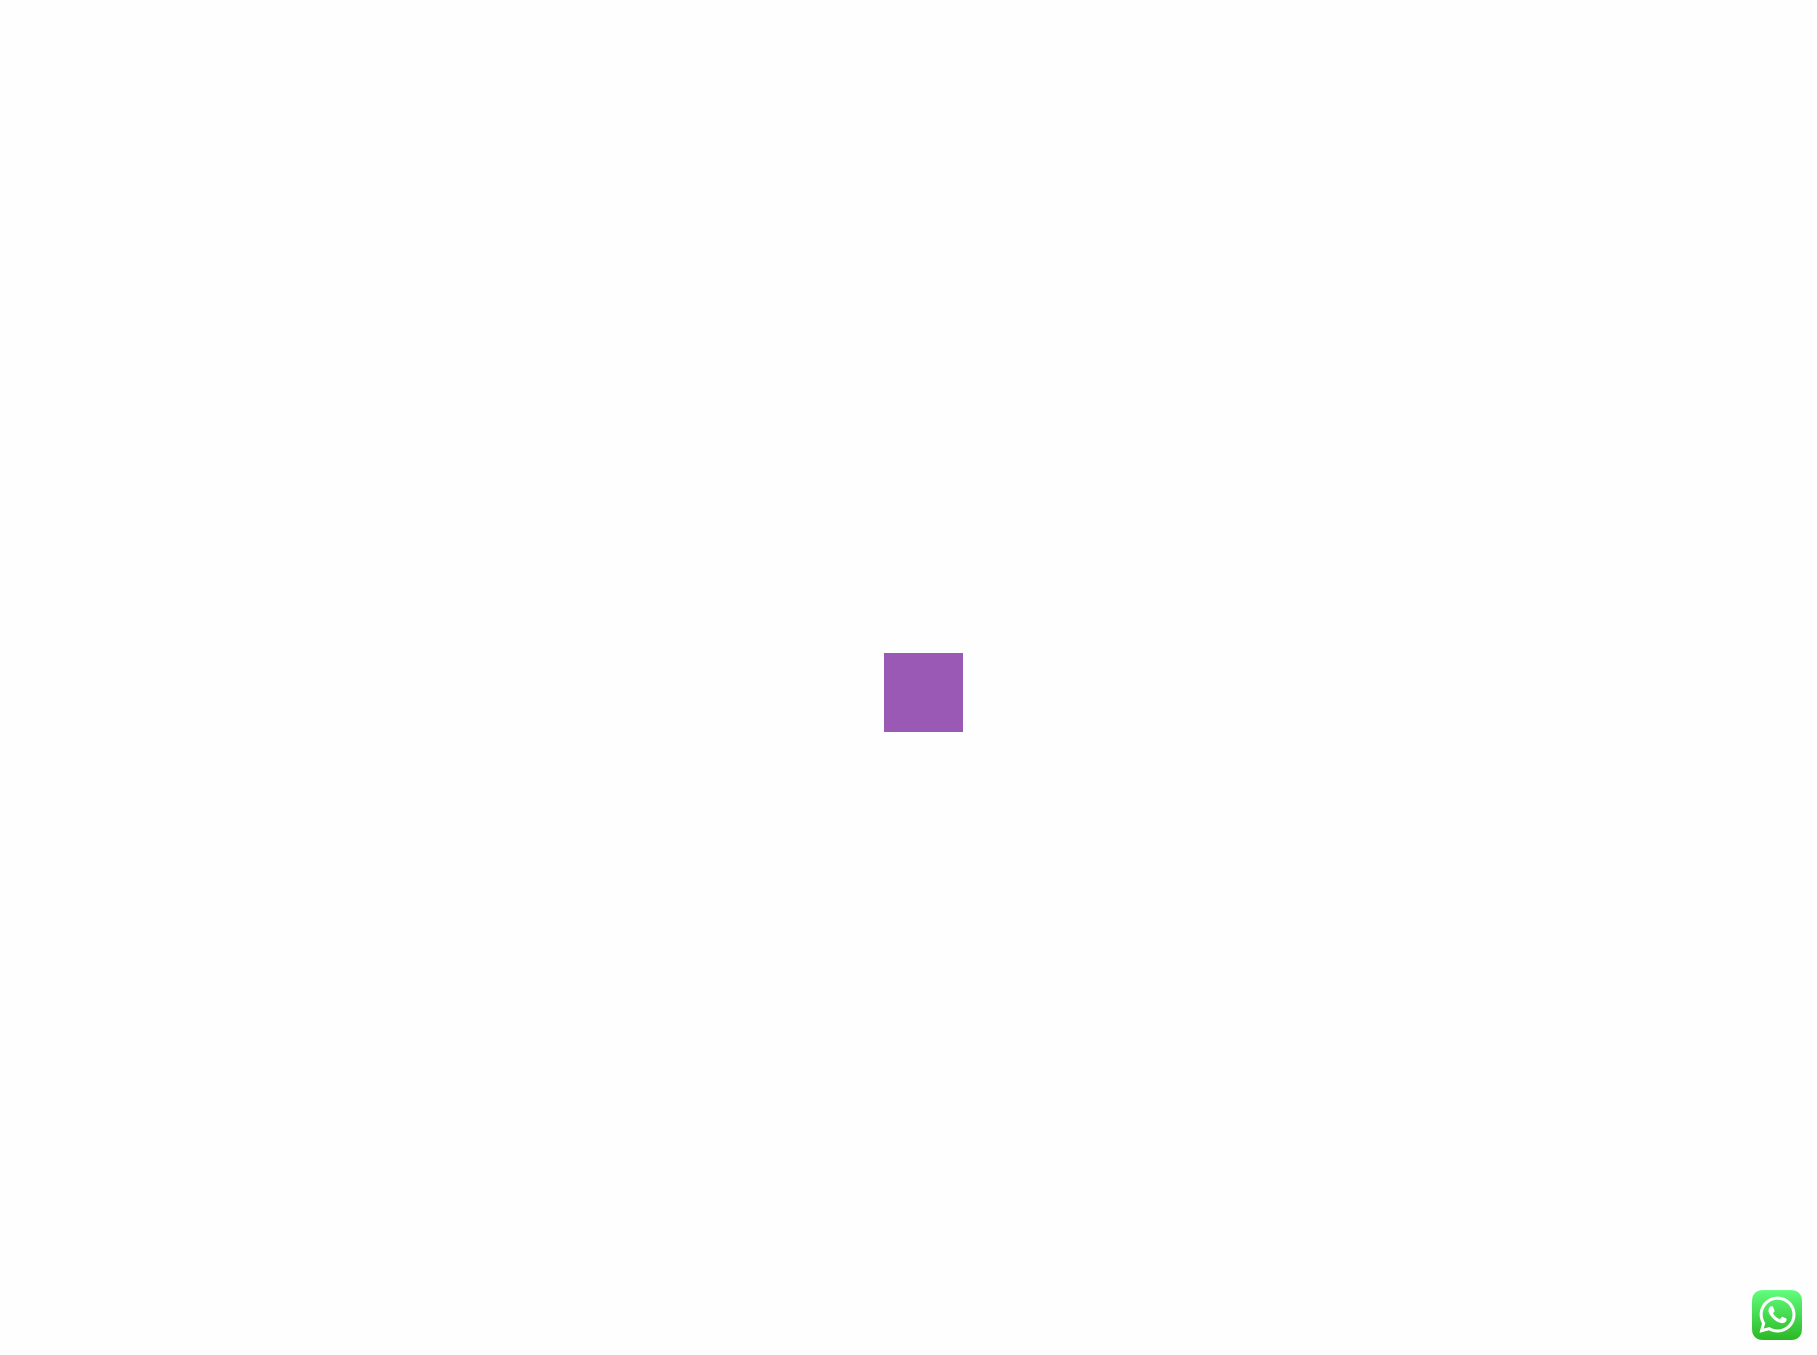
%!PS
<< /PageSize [1817 1355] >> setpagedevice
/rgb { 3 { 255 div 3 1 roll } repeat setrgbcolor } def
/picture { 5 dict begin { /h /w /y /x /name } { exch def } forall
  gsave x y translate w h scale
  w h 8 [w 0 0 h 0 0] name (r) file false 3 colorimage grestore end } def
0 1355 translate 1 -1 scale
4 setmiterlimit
254 254 254 rgb
0 0 1817 1355 rectfill
[
  [884 653 79 26 155 89 182]
  [884 679 79 26 155 89 182]
  [884 705 79 27 155 89 182]
] { aload pop rgb rectfill } forall
(img/1.rgb) 1752 1290 50 50 picture
showpage
